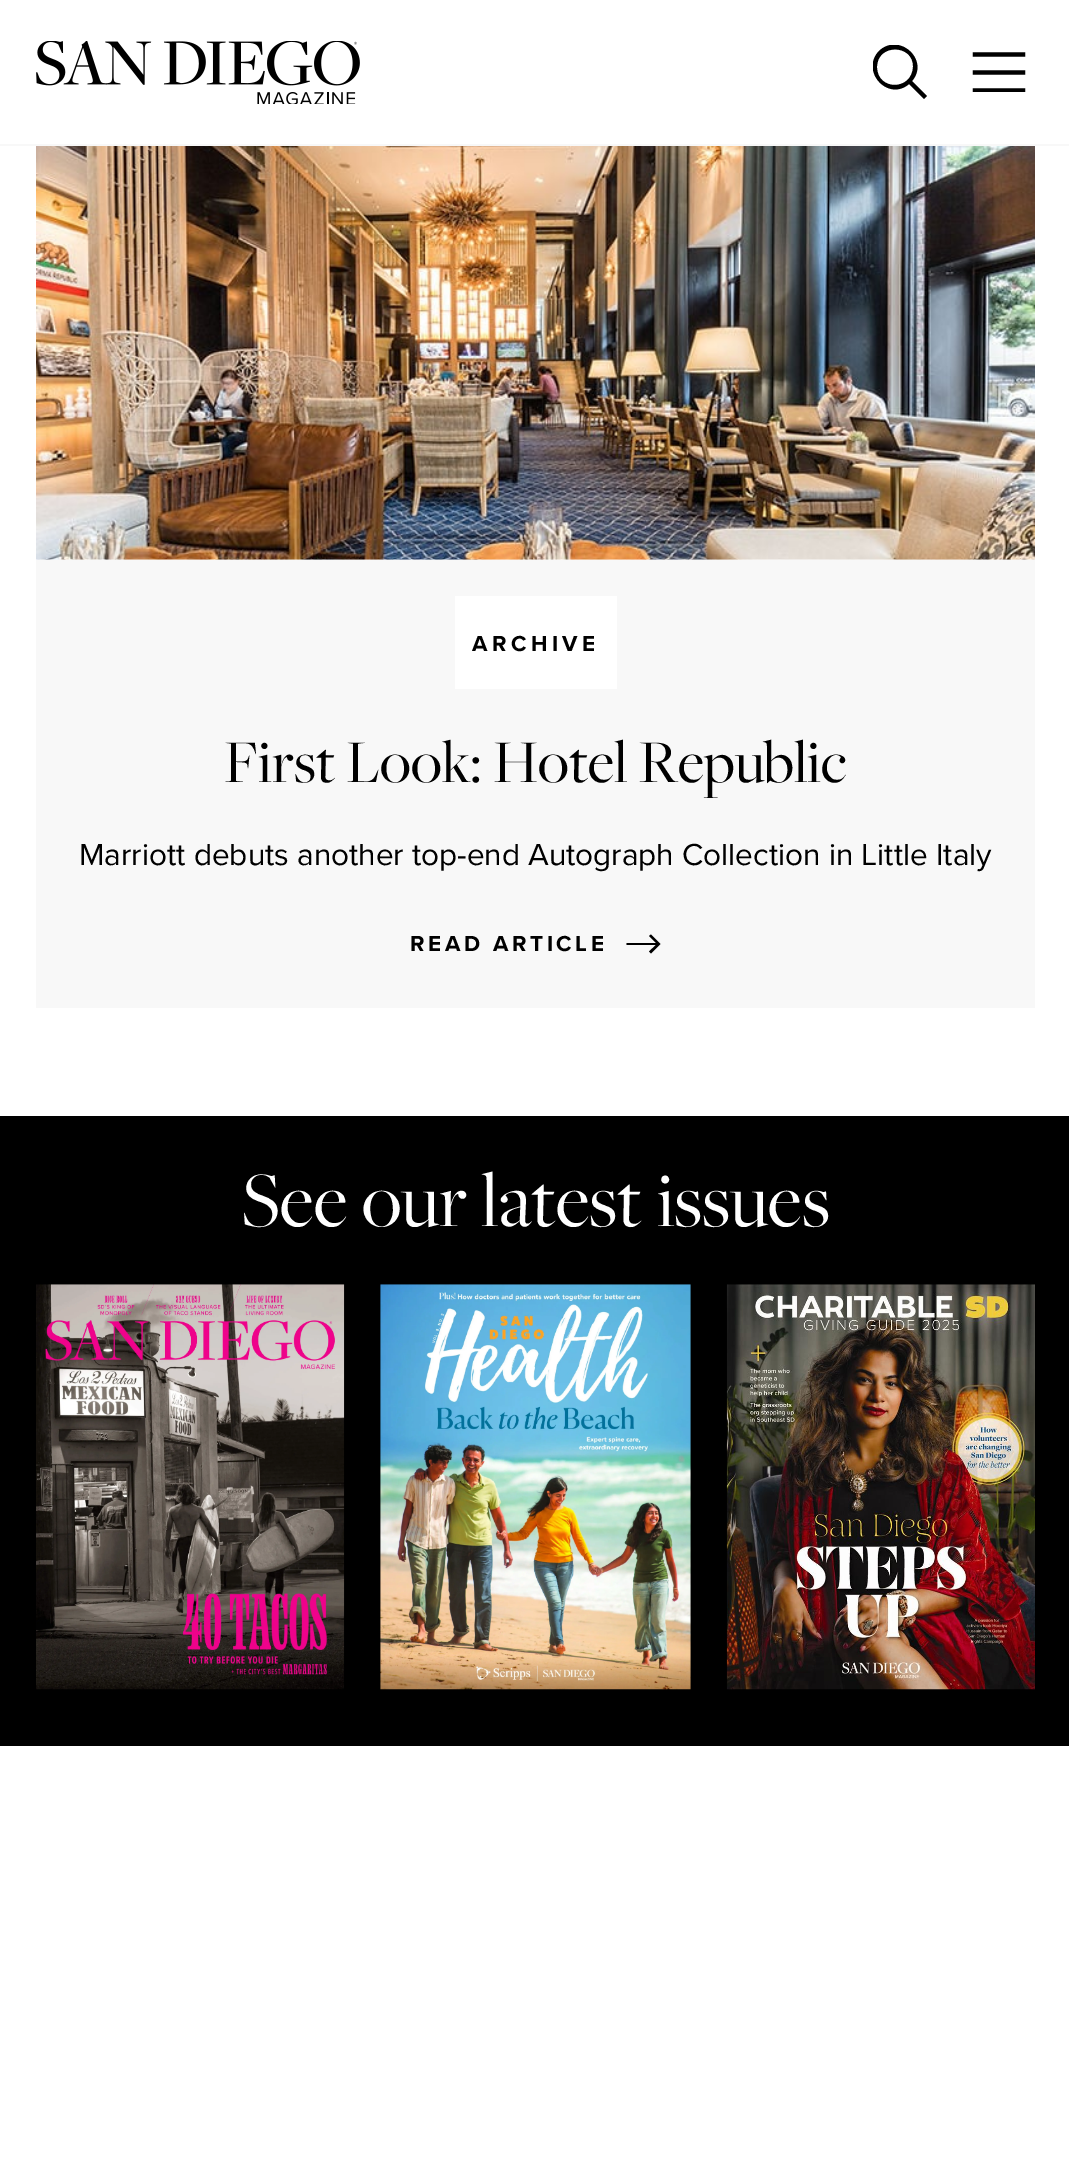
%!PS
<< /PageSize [1069 2169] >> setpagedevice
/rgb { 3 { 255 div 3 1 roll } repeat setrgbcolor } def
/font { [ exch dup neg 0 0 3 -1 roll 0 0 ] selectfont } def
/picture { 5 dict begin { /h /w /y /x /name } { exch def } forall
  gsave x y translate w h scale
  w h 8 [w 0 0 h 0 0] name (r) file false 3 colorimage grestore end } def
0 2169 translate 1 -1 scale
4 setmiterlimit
255 255 255 rgb
0 0 1069 2169 rectfill
248 248 248 rgb
0 144 1069 2 rectfill
(img/1.rgb) 36 41 324 63 picture
gsave
873 45 54 54 rectclip
0 0 0 rgb
927 96 moveto 912 81 lineto 930 60 899 32 879 51 curveto 860 71 888 102 909 84 curveto 924 99 lineto closepath 877 67 moveto 877 43 914 44 913 67 curveto 912 91 877 91 877 67 curveto closepath fill
grestore
gsave
972 52 54 40 rectclip
0 0 0 rgb
4.2 setlinewidth
2 setlinecap
1 setlinejoin
975 54.5 moveto 1023 54.5 lineto 975 72.5 moveto 1023 72.5 lineto 975 90.5 moveto 1023 90.5 lineto stroke
grestore
(img/2.rgb) 36 146 999 414 picture
36 560 999 448 rectfill
255 255 255 rgb
455 596 162 93 rectfill
0 0 0 rgb
651 934.5 moveto 649 936 lineto 656 943 lineto 626.5 943 lineto 626.5 945 lineto 656 945 lineto 649 951.5 lineto 651 953.5 lineto 660.5 944 lineto closepath fill
0 1116 1069 630 rectfill
(img/3.rgb) 36 1284 309 406 picture
(img/4.rgb) 380 1284 311 406 picture
(img/5.rgb) 726 1284 309 406 picture
/ProximaNova-Bold 22.5 font
472 651 moveto 4.5 0 (ARCHIVE) ashow
/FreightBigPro-Regular 63 font
224 782 moveto (First Look: Hotel Republic) show
/ProximaNova-Regular 31.5 font
79 865 moveto (Marriott debuts another top-end Autograph Collection in Little Italy) show
/ProximaNova-Bold 22.5 font
410 951 moveto 3.6 0 (READ ARTICLE) ashow
/FreightBigPro-Regular 81 font
255 255 255 rgb
241 1226 moveto (See our latest issues) show
showpage
